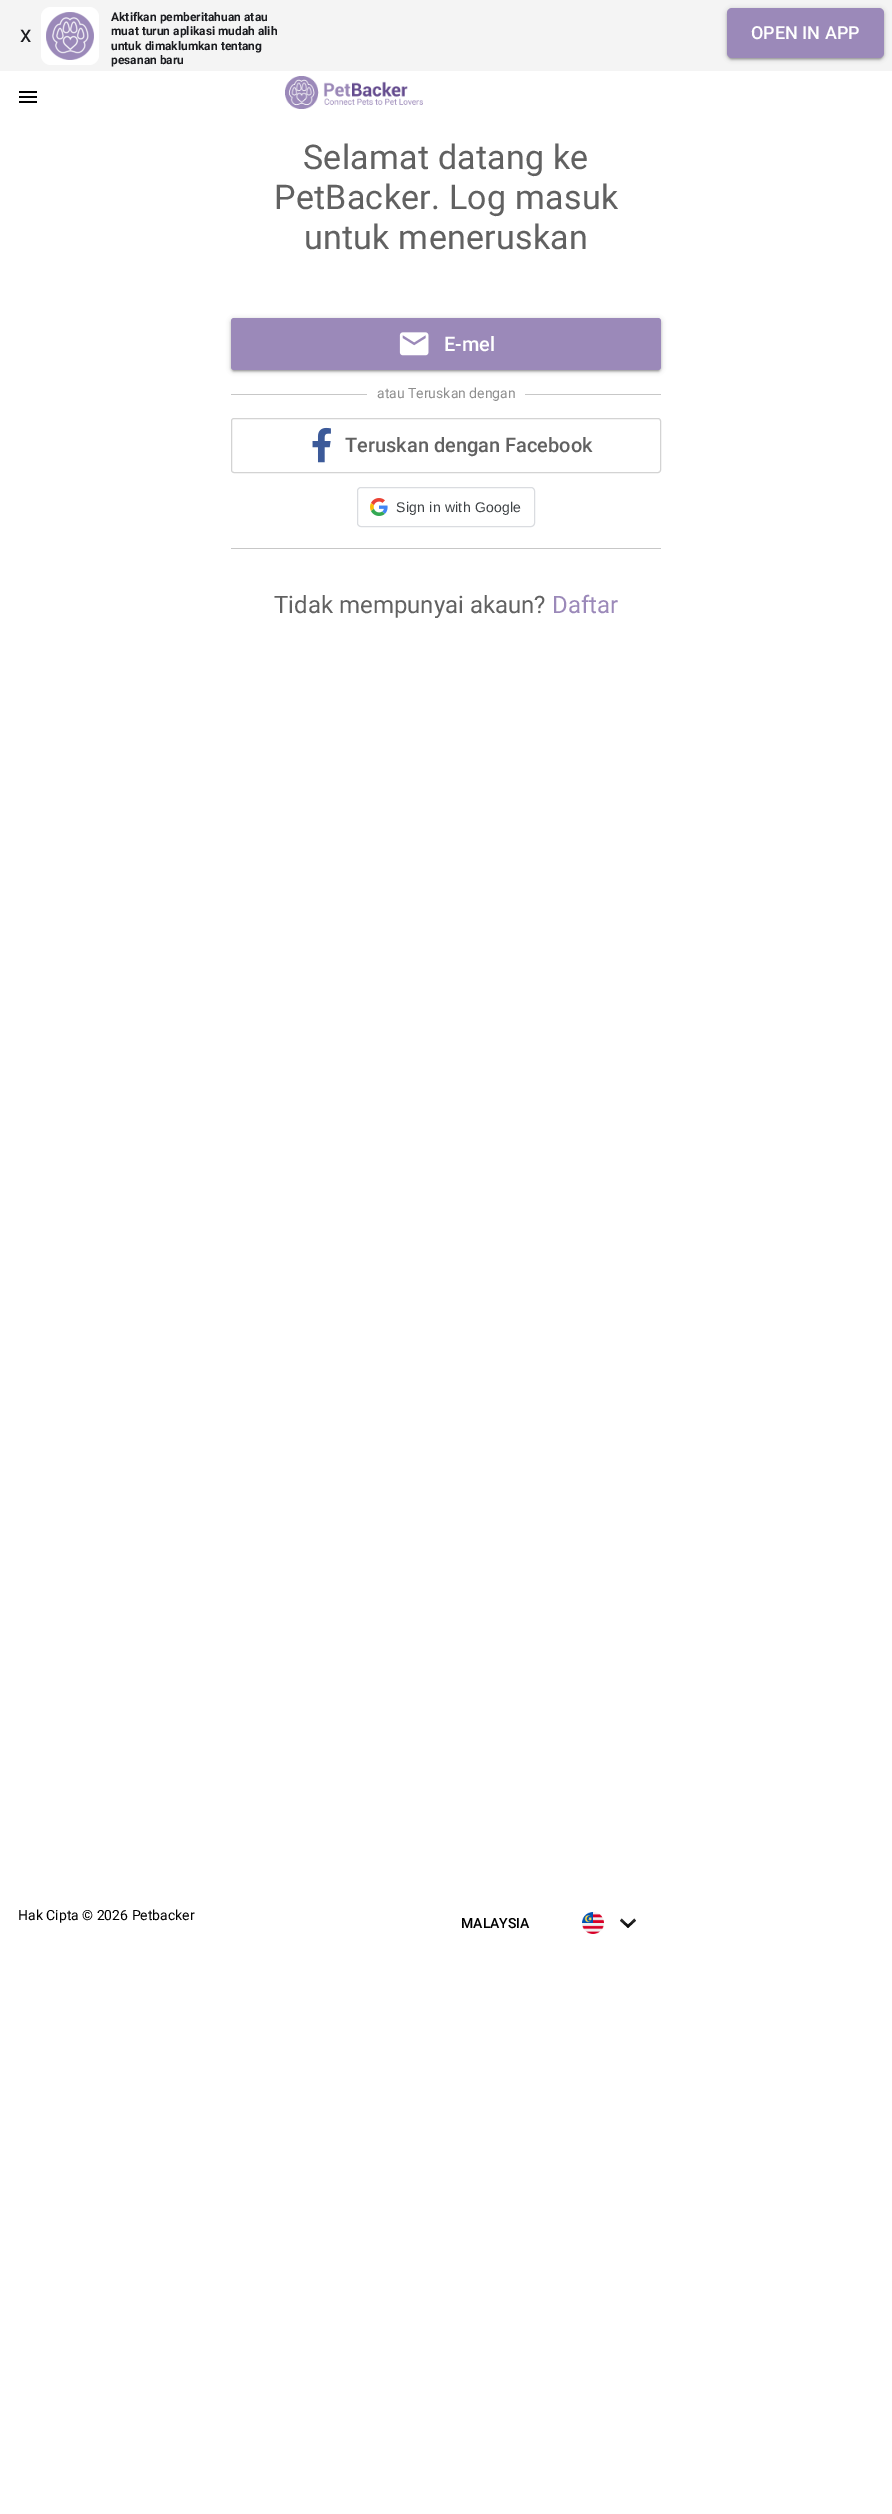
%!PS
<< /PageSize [892 2514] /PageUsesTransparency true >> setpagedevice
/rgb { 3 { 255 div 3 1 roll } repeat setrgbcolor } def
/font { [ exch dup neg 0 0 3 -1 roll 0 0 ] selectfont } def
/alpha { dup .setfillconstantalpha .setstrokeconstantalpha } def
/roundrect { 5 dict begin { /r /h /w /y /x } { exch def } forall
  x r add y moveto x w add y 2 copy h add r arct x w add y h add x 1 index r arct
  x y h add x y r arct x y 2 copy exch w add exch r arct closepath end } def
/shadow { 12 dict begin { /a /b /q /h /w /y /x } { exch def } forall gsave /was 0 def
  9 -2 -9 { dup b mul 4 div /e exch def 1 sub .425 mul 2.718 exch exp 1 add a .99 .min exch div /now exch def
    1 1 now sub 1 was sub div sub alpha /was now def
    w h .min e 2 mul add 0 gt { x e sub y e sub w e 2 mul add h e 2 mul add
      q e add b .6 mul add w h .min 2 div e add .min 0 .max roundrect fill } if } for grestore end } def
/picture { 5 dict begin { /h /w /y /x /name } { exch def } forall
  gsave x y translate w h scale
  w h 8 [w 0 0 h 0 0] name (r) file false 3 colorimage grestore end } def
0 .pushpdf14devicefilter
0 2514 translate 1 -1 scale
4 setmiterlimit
255 255 255 rgb
0 0 892 2514 rectfill
244 244 244 rgb
0 0 892 71 rectfill
255 255 255 rgb
41 7 58 58 10 roundrect fill
(img/1.rgb) 46 12 48 48 picture
0 0 0 rgb
729 13 153 46 3 0.5 0.12 shadow
727 10 157 50 5 1 0.14 shadow
727 9 157 50 5 2.5 0.2 shadow
155 137 185 rgb
727 8 157 50 5 roundrect fill
(img/2.rgb) 19 91 18 12 picture
(img/3.rgb) 285 76 138 33 picture
0 0 0 rgb
233 323 426 48 1 0.5 0.12 shadow
231 320 430 52 3 1 0.14 shadow
231 319 430 52 3 2.5 0.2 shadow
155 137 185 rgb
231 318 430 52 3 roundrect fill
(img/4.rgb) 399 332 30 24 picture
199 199 199 rgb
231 394 430 1 rectfill
255 255 255 rgb
367 394 158 1 rectfill
211 211 211 rgb
231.5 418.5 429 54 2.5 roundrect stroke
(img/5.rgb) 312 427 19 36 picture
218 220 224 rgb
357.5 487.5 177 39 3.5 roundrect stroke
(img/6.rgb) 370 498 18 18 picture
199 199 199 rgb
231 548 430 1 rectfill
(img/7.rgb) 620 1918 16 10 picture
(img/8.rgb) 582 1912 22 22 picture
/Roboto-Regular 23 font
27 28 32 rgb
20 42 moveto (x) show
/Roboto-Bold 12 font
[
  [(Aktifkan pemberitahuan atau) 111 21]
  [(muat turun aplikasi mudah alih) 111 35]
  [(untuk dimaklumkan tentang) 111 50]
  [(pesanan baru) 111 64]
] { aload pop moveto show } forall
/Roboto-Medium 18 font
255 255 255 rgb
751 39 moveto (OPEN IN APP) show
/Roboto-Regular 34 font
97 97 97 rgb
303 169 moveto 0.25 0 (Selamat datang ke) ashow
274 209 moveto 0.25 0 (PetBacker. Log masuk) ashow
304 249 moveto 0.25 0 (untuk meneruskan) ashow
/Roboto-Medium 20 font
255 255 255 rgb
444 351 moveto (E-mel) show
/Roboto-Regular 14 font
142 142 142 rgb
377 398 moveto (atau Teruskan dengan) show
/Roboto-Medium 20 font
97 97 97 rgb
345 452 moveto (Teruskan dengan Facebook) show
/LiberationSans-Regular 14 font
60 64 67 rgb
396 512 moveto 0.25 0 (Sign in with Google) ashow
/Roboto-Regular 24 font
97 97 97 rgb
274 613 moveto (Tidak mempunyai akaun?) show
155 137 185 rgb
552 613 moveto (Daftar) show
/Roboto-Regular 14 font
0 0 0 rgb
18 1920 moveto (Hak Cipta © 2026 Petbacker) show
/Roboto-Medium 14 font
461 1928 moveto (MALAYSIA) show
.poppdf14devicefilter showpage
